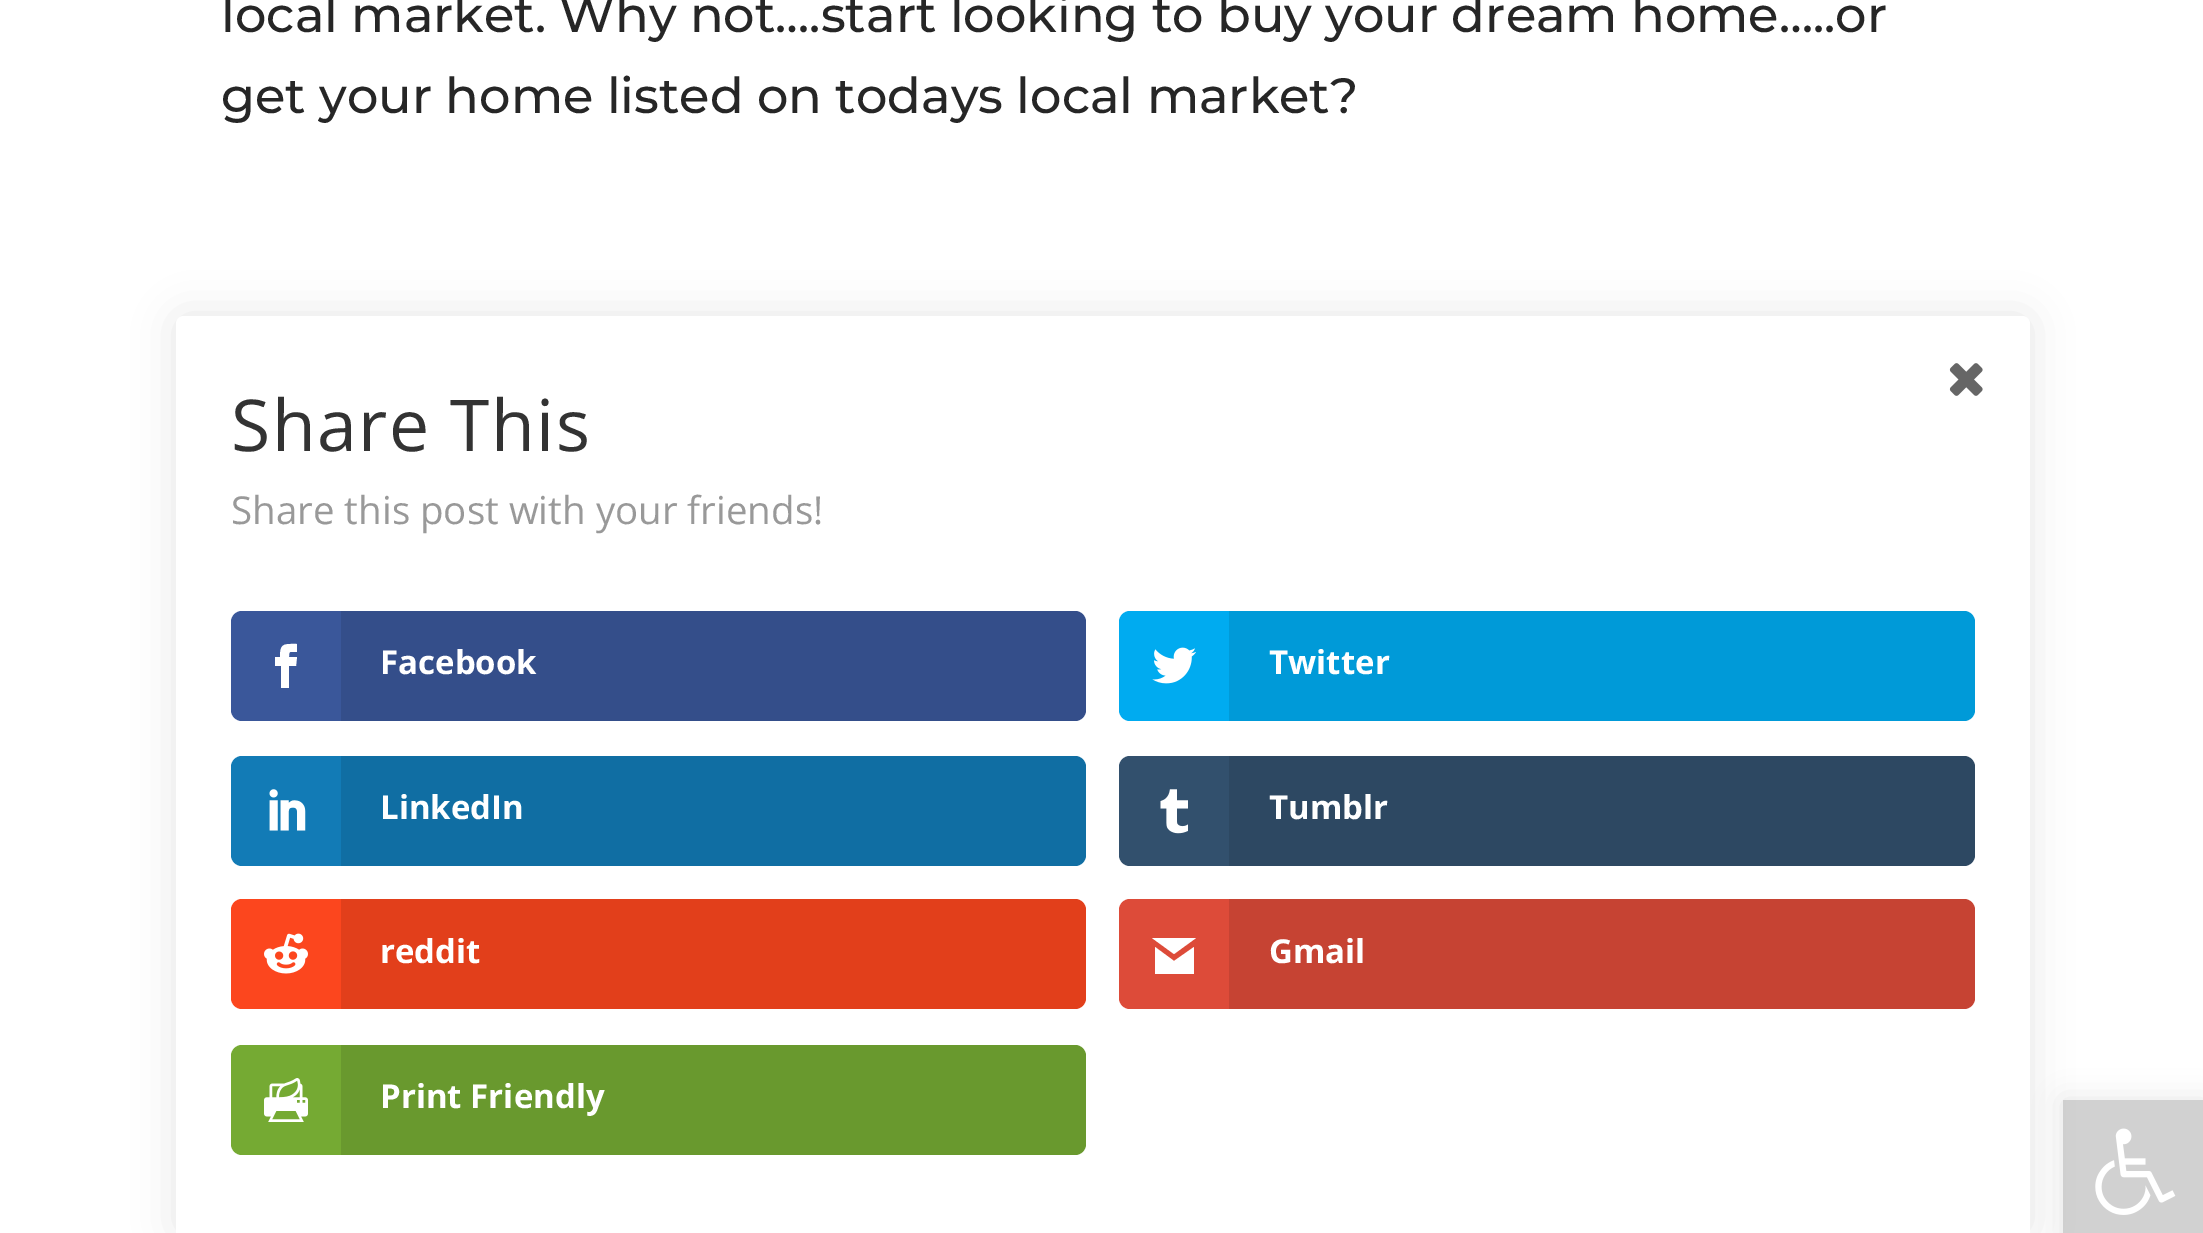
%!PS
<< /PageSize [2203 1233] /PageUsesTransparency true >> setpagedevice
/rgb { 3 { 255 div 3 1 roll } repeat setrgbcolor } def
/font { [ exch dup neg 0 0 3 -1 roll 0 0 ] selectfont } def
/alpha { dup .setfillconstantalpha .setstrokeconstantalpha } def
/roundrect { 5 dict begin { /r /h /w /y /x } { exch def } forall
  x r add y moveto x w add y 2 copy h add r arct x w add y h add x 1 index r arct
  x y h add x y r arct x y 2 copy exch w add exch r arct closepath end } def
/shadow { 12 dict begin { /a /b /q /h /w /y /x } { exch def } forall gsave /was 0 def
  9 -2 -9 { dup b mul 4 div /e exch def 1 sub .425 mul 2.718 exch exp 1 add a .99 .min exch div /now exch def
    1 1 now sub 1 was sub div sub alpha /was now def
    w h .min e 2 mul add 0 gt { x e sub y e sub w e 2 mul add h e 2 mul add
      q e add b .6 mul add w h .min 2 div e add .min 0 .max roundrect fill } if } for grestore end } def
/picture { 5 dict begin { /h /w /y /x /name } { exch def } forall
  gsave x y translate w h scale
  w h 8 [w 0 0 h 0 0] name (r) file false 3 colorimage grestore end } def
0 .pushpdf14devicefilter
0 1233 translate 1 -1 scale
4 setmiterlimit
255 255 255 rgb
0 0 2203 1233 rectfill
0 0 0 rgb
2063 1100 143 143 0 14 0.1 shadow
209 209 209 rgb
2063 1100 140 133 rectfill
0 0 0 rgb
176 316 1854 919 8 20.5 0.1 shadow
255 255 255 rgb
184 316 moveto 2022 316 lineto 2026.5 316 2030 319.5 2030 324 curveto 2030 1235 lineto 176 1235 lineto 176 324 lineto 176 319.5 179.5 316 184 316 curveto closepath fill
(img/1.rgb) 1949 363 34 33 picture
58 87 154 rgb
231 611 855 110 11 roundrect fill
255 255 255 rgb
289 688 moveto 281 688 lineto 281 666 lineto 275 666 lineto 275 657 lineto 280 657 lineto 280 643 284 644 297 644 curveto 297 652 lineto 290 652 289 650 289 657 curveto 297 657 lineto 296 666 lineto 289 666 lineto closepath fill
0.1 alpha
0 0 0 rgb
341 611 moveto 1075 611 lineto 1081 611 1086 616 1086 622 curveto 1086 710 lineto 1086 716 1081 721 1075 721 curveto 341 721 lineto closepath fill
1 alpha
0 171 240 rgb
1119 611 856 110 11 roundrect fill
(img/2.rgb) 1152 647 44 37 picture
0.1 alpha
0 0 0 rgb
1229 611 moveto 1964 611 lineto 1970 611 1975 616 1975 622 curveto 1975 710 lineto 1975 716 1970 721 1964 721 curveto 1229 721 lineto closepath fill
1 alpha
18 123 182 rgb
231 756 855 110 11 roundrect fill
(img/3.rgb) 269 789 37 42 picture
0.1 alpha
0 0 0 rgb
341 756 moveto 1075 756 lineto 1081 756 1086 761 1086 767 curveto 1086 855 lineto 1086 861 1081 866 1075 866 curveto 341 866 lineto closepath fill
1 alpha
50 80 109 rgb
1119 756 856 110 11 roundrect fill
(img/4.rgb) 1160 789 28 45 picture
0.1 alpha
0 0 0 rgb
1229 756 moveto 1964 756 lineto 1970 756 1975 761 1975 767 curveto 1975 855 lineto 1975 861 1970 866 1964 866 curveto 1229 866 lineto closepath fill
1 alpha
252 70 30 rgb
231 899 855 110 11 roundrect fill
(img/5.rgb) 264 933 44 41 picture
0.1 alpha
0 0 0 rgb
341 899 moveto 1075 899 lineto 1081 899 1086 904 1086 910 curveto 1086 998 lineto 1086 1004 1081 1009 1075 1009 curveto 341 1009 lineto closepath fill
1 alpha
221 75 57 rgb
1119 899 856 110 11 roundrect fill
0.1 alpha
0 0 0 rgb
1229 899 moveto 1964 899 lineto 1970 899 1975 904 1975 910 curveto 1975 998 lineto 1975 1004 1970 1009 1964 1009 curveto 1229 1009 lineto closepath fill
1 alpha
255 255 255 rgb
1196 938 moveto 1152 938 lineto 1174 954 lineto closepath 1174 961 moveto 1155 947 lineto 1155 974 lineto 1194 974 lineto 1194 947 lineto closepath fill
117 170 51 rgb
231 1045 855 110 11 roundrect fill
(img/6.rgb) 264 1078 44 44 picture
0.1 alpha
0 0 0 rgb
341 1045 moveto 1075 1045 lineto 1081 1045 1086 1050 1086 1056 curveto 1086 1144 lineto 1086 1150 1081 1155 1075 1155 curveto 341 1155 lineto closepath fill
1 alpha
(img/7.rgb) 2095 1128 81 87 picture
/Montserrat-Medium 49.5 font
38 38 38 rgb
221 32 moveto (local market. Why not….start looking to buy your dream home…..or) show
221 113 moveto (get your home listed on todays local market?) show
/OpenSans-Regular 71.5 font
51 51 51 rgb
231 451 moveto 1.4 0 (Share This) ashow
/OpenSans-Regular 38.5 font
153 153 153 rgb
231 524 moveto (Share this post with your friends!) show
/OpenSans-Bold 33 font
255 255 255 rgb
[
  [(Facebook) 380 674]
  [(Twitter) 1269 674]
  [(LinkedIn) 380 819]
  [(Tumblr) 1269 819]
  [(reddit) 380 963]
  [(Gmail) 1269 963]
  [(Print Friendly) 380 1108]
] { aload pop moveto show } forall
.poppdf14devicefilter showpage
